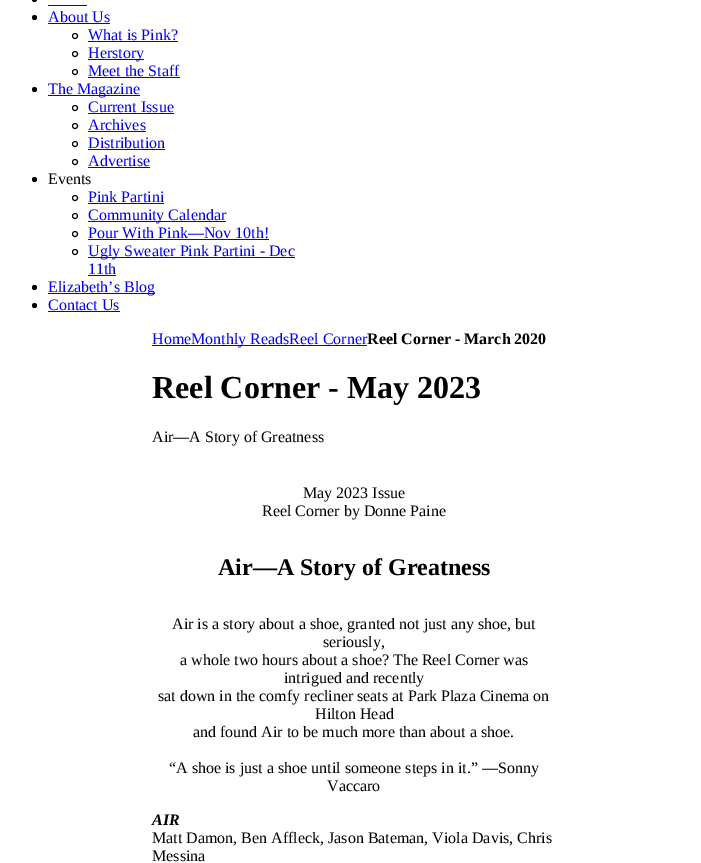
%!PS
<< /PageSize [701 863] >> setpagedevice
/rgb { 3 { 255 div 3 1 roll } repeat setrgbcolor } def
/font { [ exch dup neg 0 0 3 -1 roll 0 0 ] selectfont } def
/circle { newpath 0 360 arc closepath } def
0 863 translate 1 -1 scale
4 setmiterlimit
255 255 255 rgb
0 0 701 863 rectfill
0 0 0 rgb
34.5 -0.5 2.5 circle fill
0 0 238 rgb
48 5 39 1 rectfill
0 0 0 rgb
34.5 17.5 2.5 circle fill
0 0 238 rgb
48 23 62 1 rectfill
0 0 0 rgb
75 36 2.5 circle stroke
0 0 238 rgb
88 41 90 1 rectfill
0 0 0 rgb
75 54 2.5 circle stroke
0 0 238 rgb
88 59 56 1 rectfill
0 0 0 rgb
75 72 2.5 circle stroke
0 0 238 rgb
88 77 92 1 rectfill
0 0 0 rgb
34.5 89.5 2.5 circle fill
0 0 238 rgb
48 95 92 1 rectfill
0 0 0 rgb
75 108 2.5 circle stroke
0 0 238 rgb
88 113 86 1 rectfill
0 0 0 rgb
75 126 2.5 circle stroke
0 0 238 rgb
88 131 58 1 rectfill
0 0 0 rgb
75 144 2.5 circle stroke
0 0 238 rgb
88 149 77 1 rectfill
0 0 0 rgb
75 162 2.5 circle stroke
0 0 238 rgb
88 167 62 1 rectfill
0 0 0 rgb
34.5 179.5 2.5 circle fill
75 198 2.5 circle stroke
0 0 238 rgb
88 203 76 1 rectfill
0 0 0 rgb
75 216 2.5 circle stroke
0 0 238 rgb
88 221 138 1 rectfill
0 0 0 rgb
75 234 2.5 circle stroke
0 0 238 rgb
88 239 181 1 rectfill
0 0 0 rgb
75 252 2.5 circle stroke
0 0 238 rgb
88 257 207 1 rectfill
88 275 28 1 rectfill
0 0 0 rgb
34.5 287.5 2.5 circle fill
0 0 238 rgb
48 293 107 1 rectfill
0 0 0 rgb
34.5 305.5 2.5 circle fill
0 0 238 rgb
48 311 72 1 rectfill
152 345 215 1 rectfill
/LiberationSerif-Regular 16 font
[
  [(About Us) 48 22]
  [(What is Pink?) 88 40]
  [(Herstory) 88 58]
  [(Meet the Staff) 88 76]
  [(The Magazine) 48 94]
  [(Current Issue) 88 112]
  [(Archives) 88 130]
  [(Distribution) 88 148]
  [(Advertise) 88 166]
] { aload pop moveto show } forall
0 0 0 rgb
48 184 moveto (Events) show
0 0 238 rgb
[
  [(Pink Partini) 88 202]
  [(Community Calendar) 88 220]
  [(Pour With Pink—Nov 10th!) 88 238]
  [(Ugly Sweater Pink Partini - Dec) 88 256]
  [(11th) 88 274]
  [(Elizabeth’s Blog) 48 292]
  [(Contact Us) 48 310]
  [(HomeMonthly ReadsReel Corner) 152 344]
] { aload pop moveto show } forall
/LiberationSerif-Bold 16 font
0 0 0 rgb
367 344 moveto (Reel Corner - March 2020) show
/LiberationSerif-Bold 32 font
152 398 moveto (Reel Corner - May 2023) show
/LiberationSerif-Regular 16 font
[
  [(Air—A Story of Greatness) 152 442]
  [(May 2023 Issue) 303 498]
  [(Reel Corner by Donne Paine) 262 516]
] { aload pop moveto show } forall
/LiberationSerif-Bold 24 font
218 575 moveto (Air—A Story of Greatness) show
/LiberationSerif-Regular 16 font
[
  [(Air is a story about a shoe, granted not just any shoe, but) 172 629]
  [(seriously,) 323 647]
  [(a whole two hours about a shoe? The Reel Corner was) 180 665]
  [(intrigued and recently) 284 683]
  [(sat down in the comfy recliner seats at Park Plaza Cinema on) 158 701]
  [(Hilton Head) 315 719]
  [(and found Air to be much more than about a shoe.) 193 737]
  [(“A shoe is just a shoe until someone steps in it.” —Sonny) 169 773]
  [(Vaccaro) 327 791]
] { aload pop moveto show } forall
/LiberationSerif-BoldItalic 16 font
152 825 moveto (AIR) show
/LiberationSerif-Regular 16 font
152 843 moveto (Matt Damon, Ben Affleck, Jason Bateman, Viola Davis, Chris) show
152 861 moveto (Messina) show
showpage
